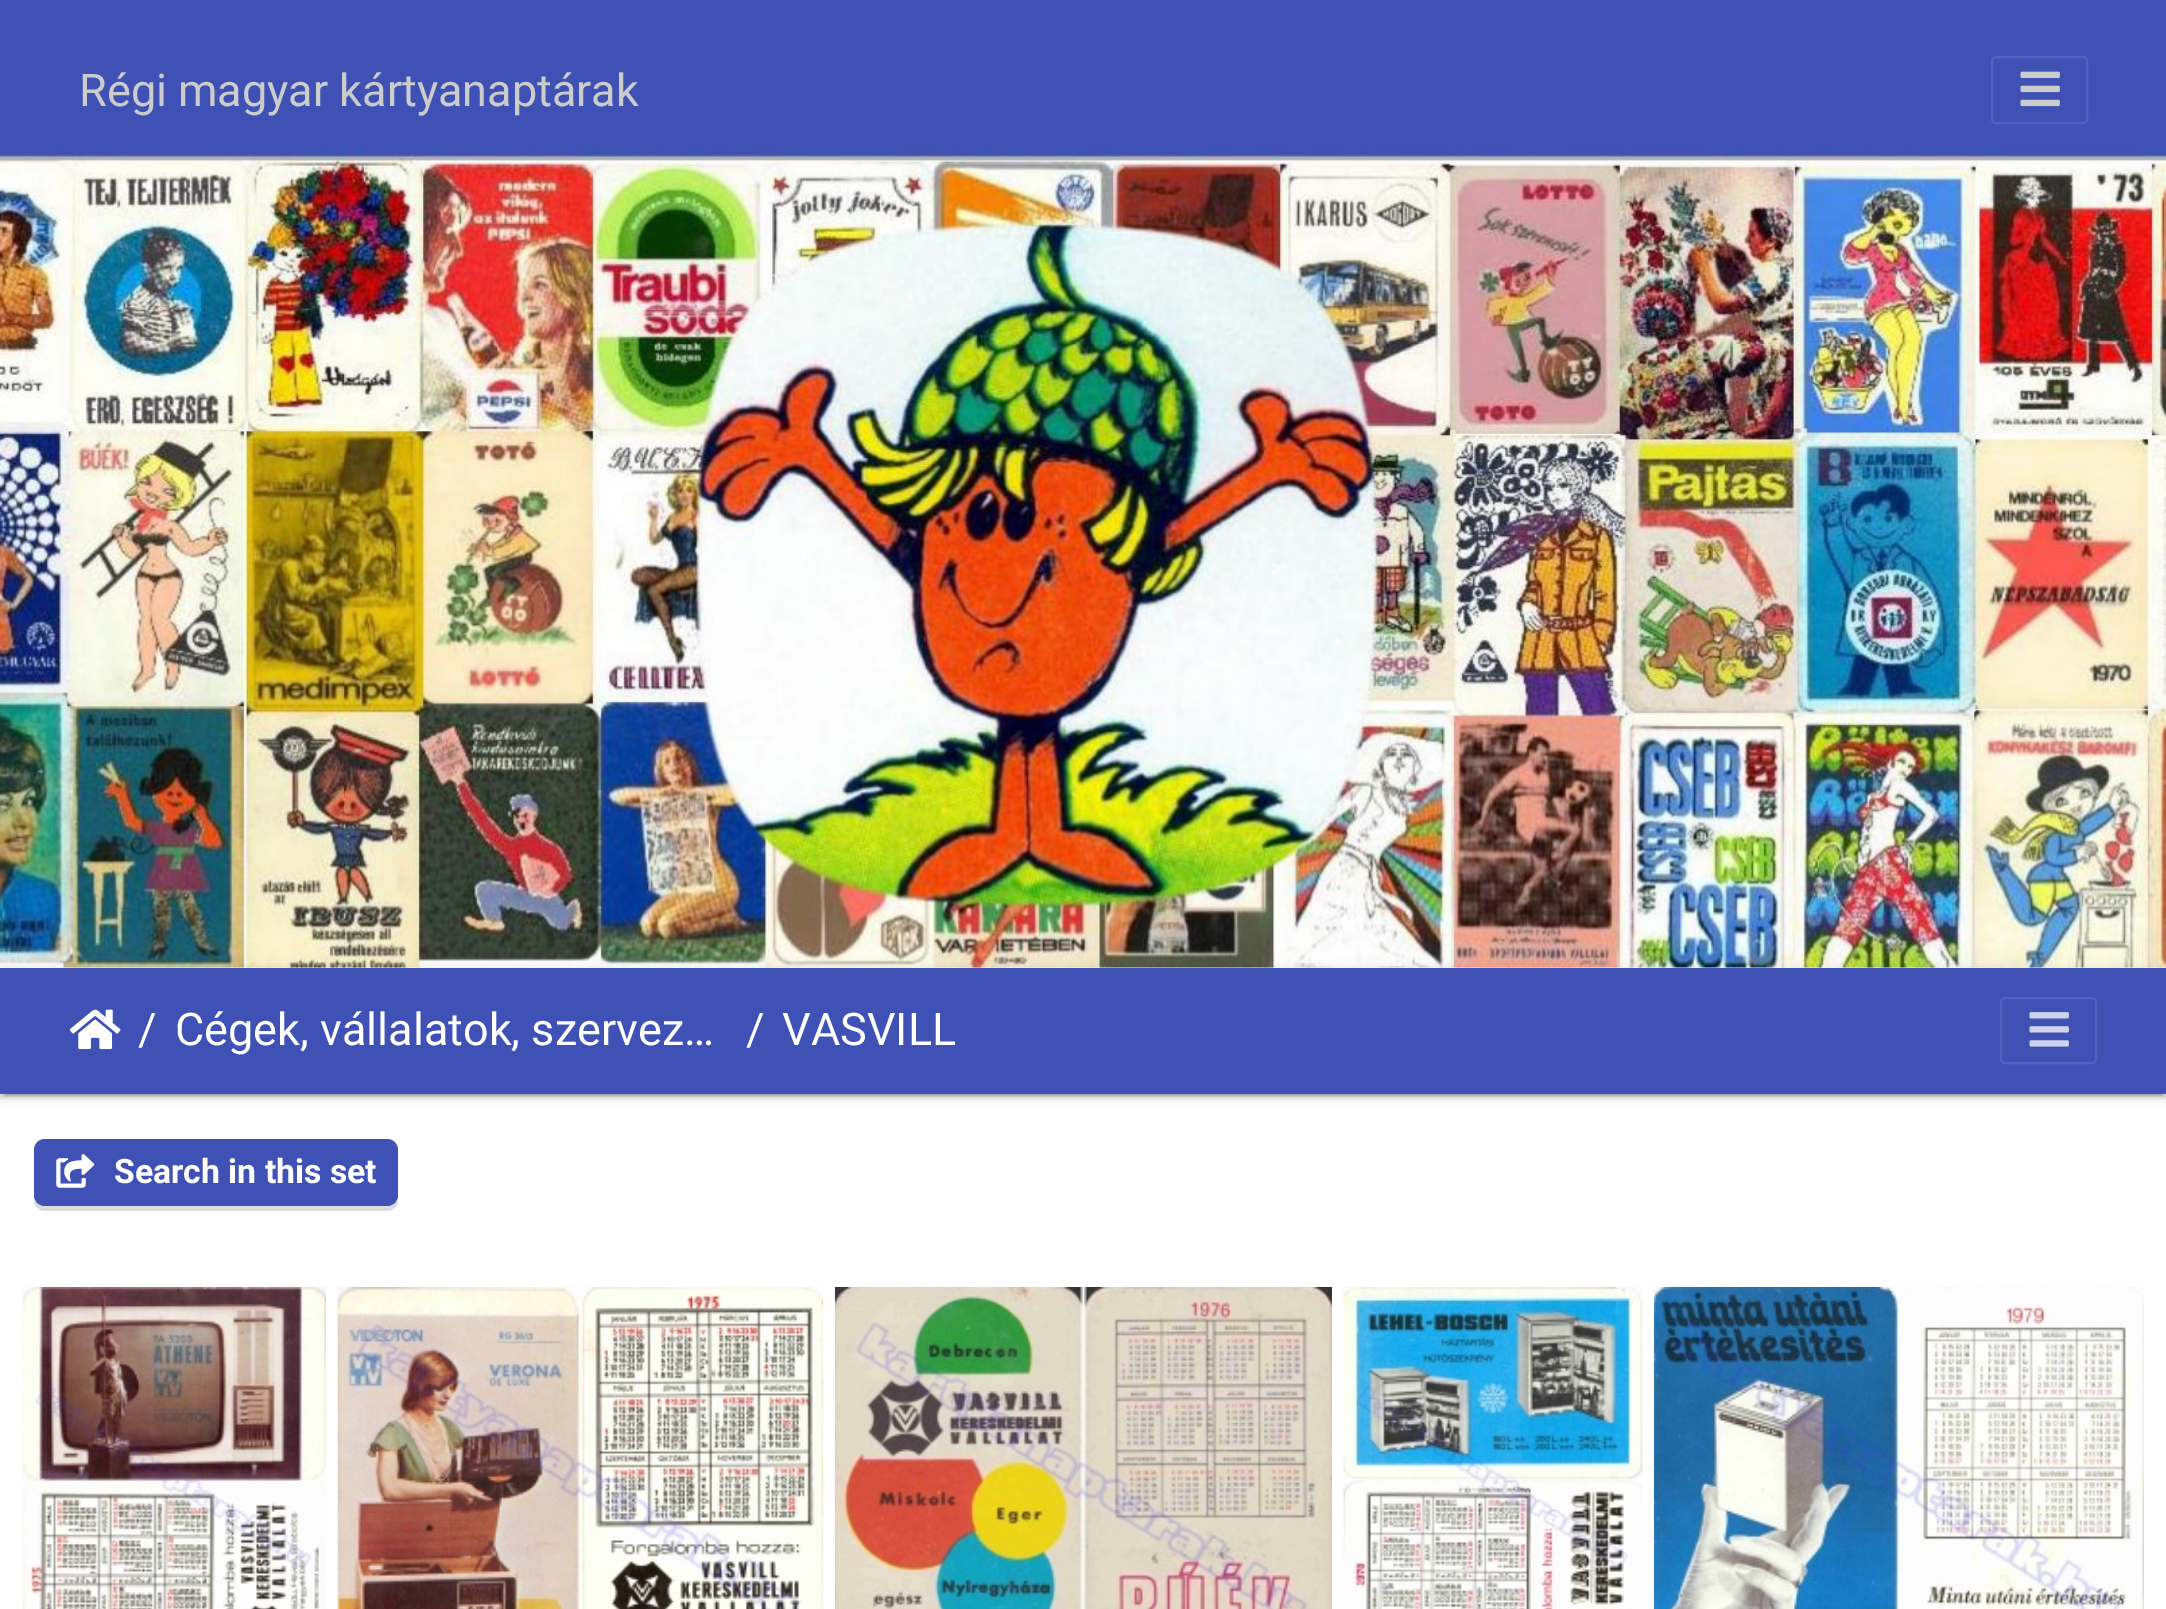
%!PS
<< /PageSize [2166 1609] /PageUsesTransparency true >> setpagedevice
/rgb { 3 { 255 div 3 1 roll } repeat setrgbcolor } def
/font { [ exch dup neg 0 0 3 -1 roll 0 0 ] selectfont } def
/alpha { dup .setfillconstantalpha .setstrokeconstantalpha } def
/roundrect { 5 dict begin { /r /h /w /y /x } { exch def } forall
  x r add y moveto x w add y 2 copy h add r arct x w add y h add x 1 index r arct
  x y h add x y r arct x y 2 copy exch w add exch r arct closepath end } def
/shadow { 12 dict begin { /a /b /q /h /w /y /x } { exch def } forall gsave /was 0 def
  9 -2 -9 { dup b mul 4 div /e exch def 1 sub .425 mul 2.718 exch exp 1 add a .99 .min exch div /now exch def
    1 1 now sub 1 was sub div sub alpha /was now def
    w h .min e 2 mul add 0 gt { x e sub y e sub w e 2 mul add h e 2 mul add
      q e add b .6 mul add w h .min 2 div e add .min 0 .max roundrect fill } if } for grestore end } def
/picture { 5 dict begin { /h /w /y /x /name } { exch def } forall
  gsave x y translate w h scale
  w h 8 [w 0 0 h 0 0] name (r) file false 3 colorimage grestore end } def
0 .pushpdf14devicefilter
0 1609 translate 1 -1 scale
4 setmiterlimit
255 255 255 rgb
0 0 2166 1609 rectfill
(img/1.rgb) 0 0 2166 968 picture
82 98 188 rgb
2 setlinewidth
1992 57 95 66 4 roundrect stroke
(img/2.rgb) 2020 71 40 36 picture
0 0 0 rgb
0 970 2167 126 0 5.5 0.12 shadow
5 979 2157 117 0 1 0.2 shadow
0 972 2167 126 0 2 0.14 shadow
63 81 181 rgb
0 968 2166 126 rectfill
(img/3.rgb) 70 1009 51 41 picture
82 98 188 rgb
2001 998 95 65 4 roundrect stroke
(img/4.rgb) 2029 1012 40 35 picture
219 219 219 rgb
34 1197 moveto 34 1200 lineto 34 1206 39 1211 45 1211 curveto 387 1211 lineto 393 1211 398 1206 398 1200 curveto 398 1197 lineto 397 1202 392 1206 387 1206 curveto 45 1206 lineto 40 1206 35 1202 34 1197 curveto closepath fill
63 81 181 rgb
34 1139 364 67 11 roundrect fill
(img/5.rgb) 56 1154 39 34 picture
(img/6.rgb) 22 1287 304 322 picture
(img/7.rgb) 337 1287 487 322 picture
(img/8.rgb) 834 1287 498 322 picture
(img/9.rgb) 1343 1287 300 322 picture
(img/10.rgb) 1653 1287 491 322 picture
/Roboto-Regular 45 font
204 204 204 rgb
79 106 moveto (Régi magyar kártyanaptárak) show
255 255 255 rgb
[
  [(/) 138 1045]
  [(Cégek, vállalatok, szervez…) 175 1045]
  [(/) 746 1045]
  [(VASVILL) 782 1045]
] { aload pop moveto show } forall
/Roboto-Bold 33.75 font
114 1183 moveto (Search in this set) show
.poppdf14devicefilter showpage
